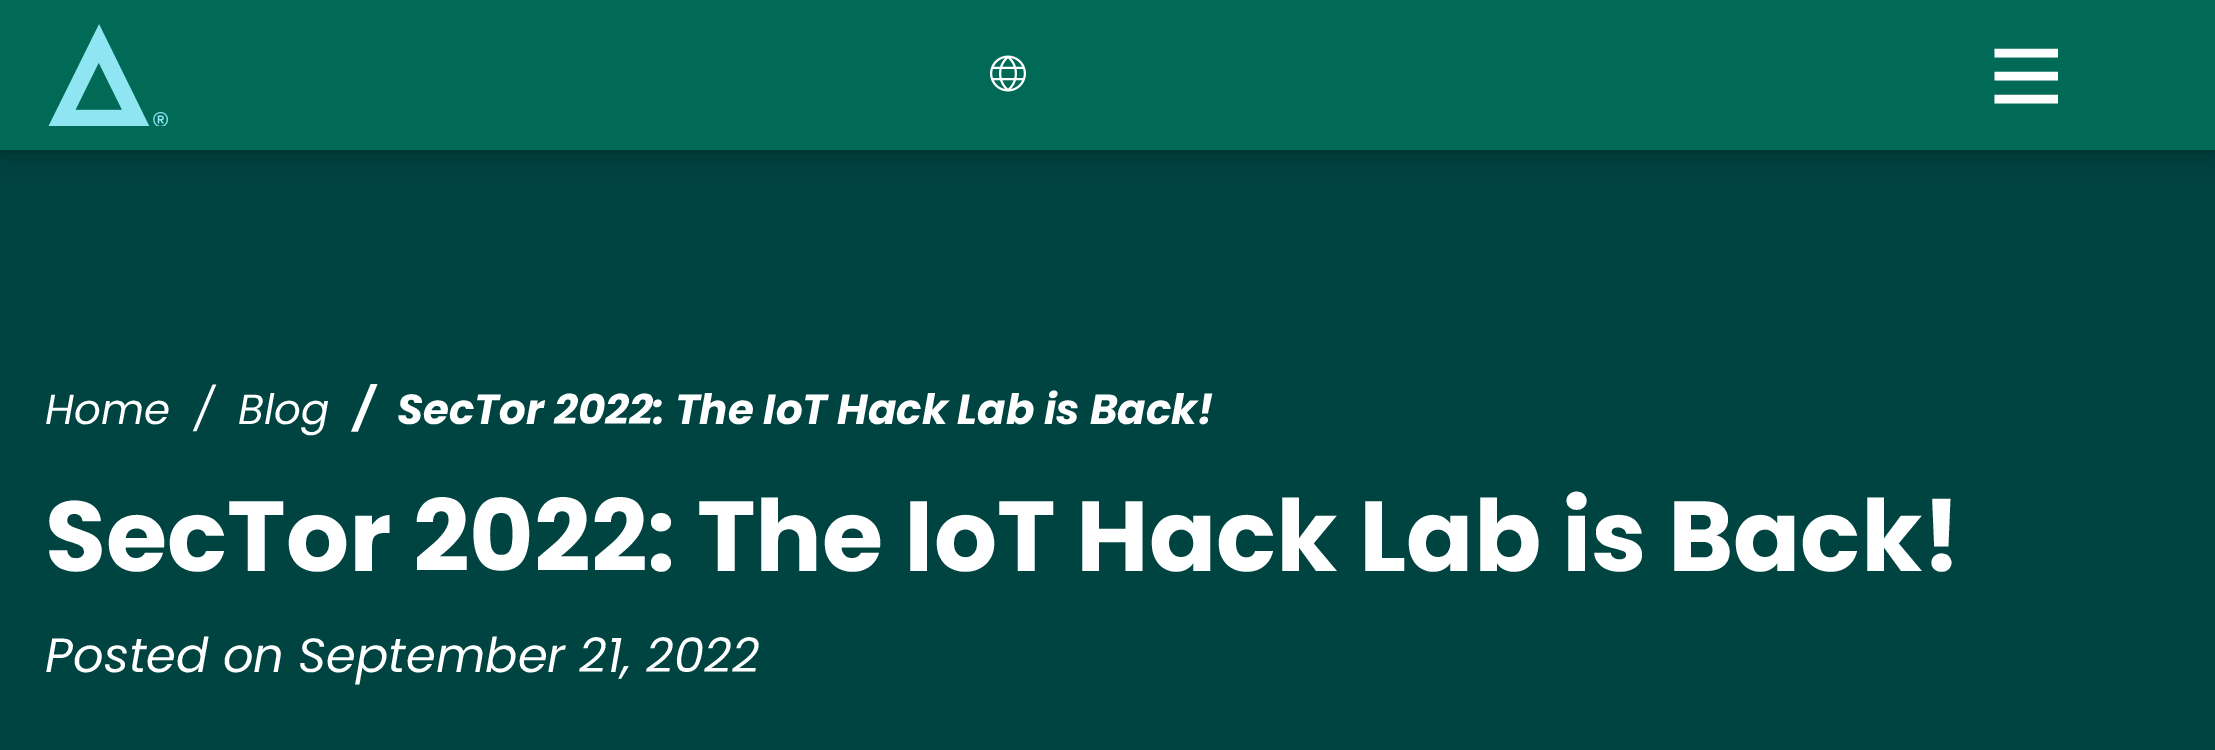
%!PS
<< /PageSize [2215 750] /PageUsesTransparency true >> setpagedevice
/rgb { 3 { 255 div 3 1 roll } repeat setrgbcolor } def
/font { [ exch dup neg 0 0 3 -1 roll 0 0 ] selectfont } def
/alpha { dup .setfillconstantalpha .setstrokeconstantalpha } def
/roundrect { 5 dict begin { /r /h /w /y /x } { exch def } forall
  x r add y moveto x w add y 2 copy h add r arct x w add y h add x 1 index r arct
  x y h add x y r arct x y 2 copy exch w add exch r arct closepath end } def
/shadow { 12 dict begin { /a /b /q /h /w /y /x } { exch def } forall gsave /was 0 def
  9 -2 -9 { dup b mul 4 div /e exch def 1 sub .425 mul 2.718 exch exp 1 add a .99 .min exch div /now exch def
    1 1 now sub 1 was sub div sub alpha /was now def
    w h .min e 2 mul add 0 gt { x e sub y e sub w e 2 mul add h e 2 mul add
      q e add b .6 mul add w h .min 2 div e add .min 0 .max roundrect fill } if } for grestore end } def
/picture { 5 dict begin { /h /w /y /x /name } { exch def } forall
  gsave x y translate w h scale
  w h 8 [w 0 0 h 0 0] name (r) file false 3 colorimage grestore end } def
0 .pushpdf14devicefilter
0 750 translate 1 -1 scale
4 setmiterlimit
0 68 66 rgb
0 0 2215 750 rectfill
0 0 0 rgb
0 0 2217 150 0 15 0.4 shadow
0 106 86 rgb
0 0 2215 150 rectfill
(img/1.rgb) 48 24 120 102 picture
(img/2.rgb) 990 55 36 37 picture
255 255 255 rgb
8.6 setlinewidth
1994.5 53 moveto 2058 53 lineto 1994.5 76 moveto 2058 76 lineto 1994.5 99 moveto 2058 99 lineto stroke
/Poppins-Italic 42 font
[
  [(Home) 45 424]
  [(/) 194 424]
  [(Blog) 238 424]
] { aload pop moveto show } forall
/Poppins-BoldItalic 42 font
354 424 moveto (/) show
397 424 moveto (SecTor 2022: The IoT Hack Lab is Back!) show
/Poppins-Bold 99.25 font
45 571 moveto (SecTor 2022: The IoT Hack Lab is Back!) show
/Poppins-Italic 48 font
45 672 moveto (Posted on September 21, 2022) show
.poppdf14devicefilter showpage
